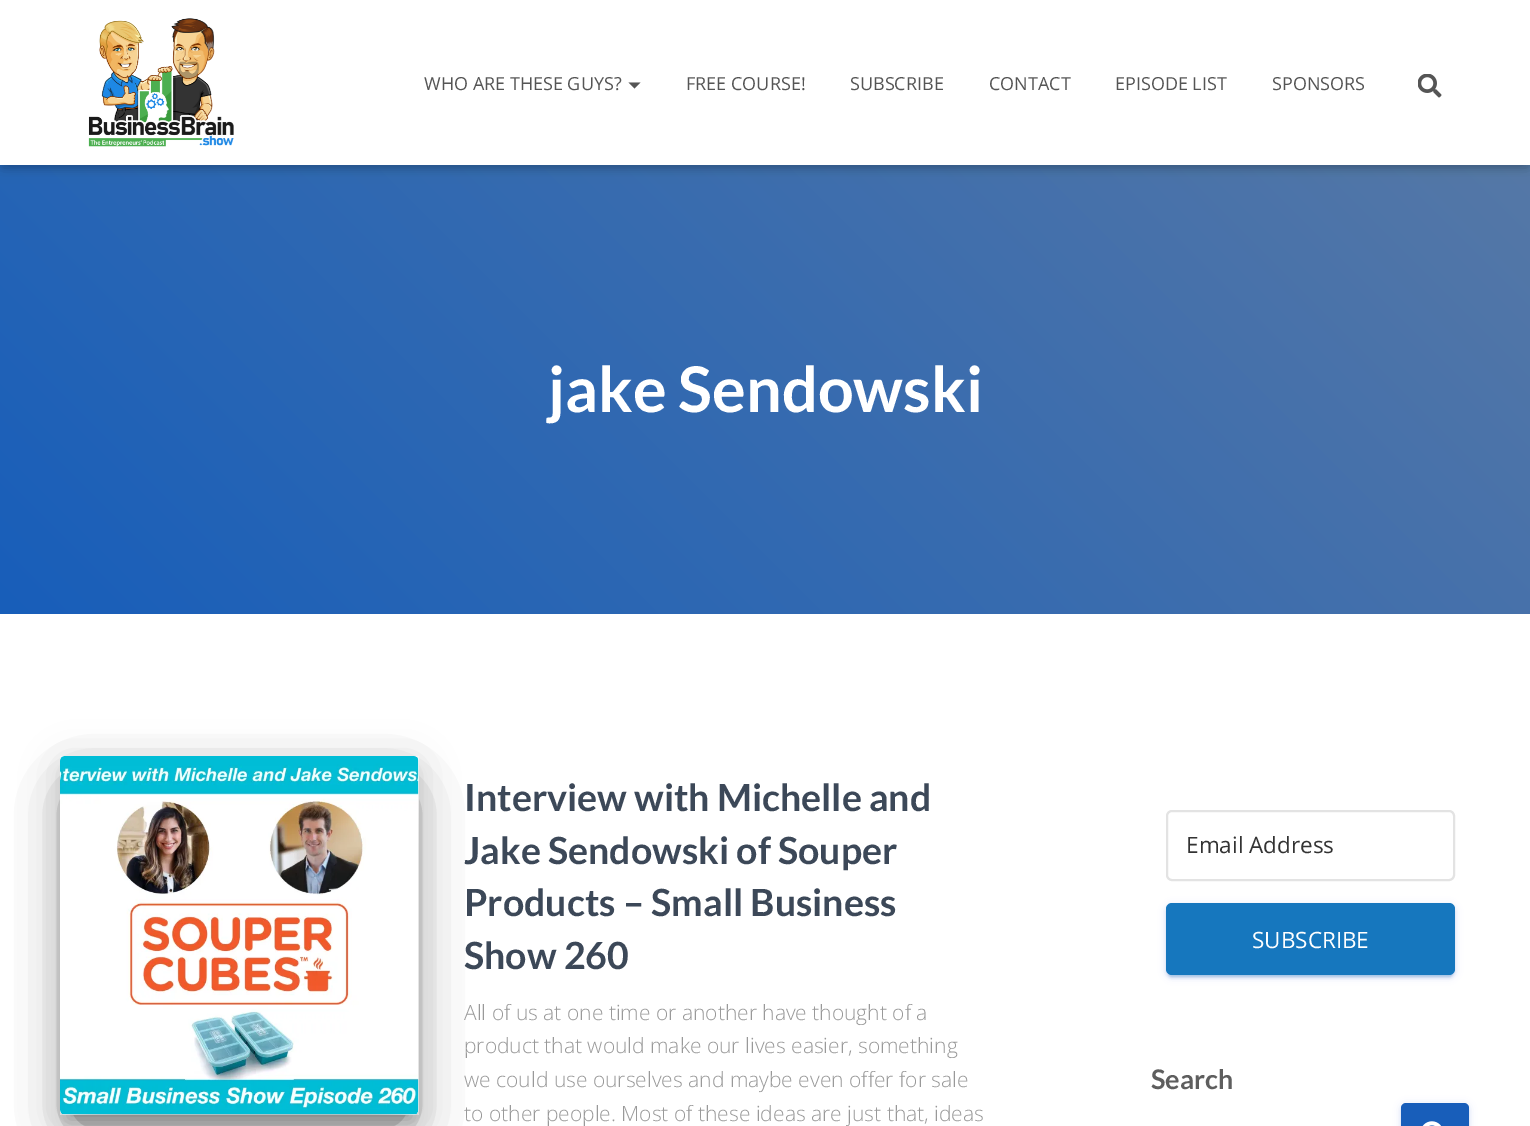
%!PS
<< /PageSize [1530 1126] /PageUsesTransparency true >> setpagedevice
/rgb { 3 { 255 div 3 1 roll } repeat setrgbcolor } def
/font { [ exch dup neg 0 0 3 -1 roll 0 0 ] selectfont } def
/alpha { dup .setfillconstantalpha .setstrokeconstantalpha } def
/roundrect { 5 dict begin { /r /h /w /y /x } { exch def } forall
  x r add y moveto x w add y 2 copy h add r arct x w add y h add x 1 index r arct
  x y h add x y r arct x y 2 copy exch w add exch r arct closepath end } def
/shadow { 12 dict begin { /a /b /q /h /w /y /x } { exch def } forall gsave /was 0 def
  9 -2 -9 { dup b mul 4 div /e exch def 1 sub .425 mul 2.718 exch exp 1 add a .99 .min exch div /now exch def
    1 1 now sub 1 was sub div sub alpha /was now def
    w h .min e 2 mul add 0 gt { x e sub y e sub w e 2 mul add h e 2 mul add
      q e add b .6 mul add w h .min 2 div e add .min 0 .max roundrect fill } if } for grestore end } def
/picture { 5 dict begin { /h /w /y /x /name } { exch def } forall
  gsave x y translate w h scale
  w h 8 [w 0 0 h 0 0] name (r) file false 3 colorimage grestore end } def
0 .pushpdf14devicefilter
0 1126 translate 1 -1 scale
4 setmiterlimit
255 255 255 rgb
0 0 1530 1126 rectfill
gsave 0 165 moveto 1530 165 lineto 1530 614 lineto 0 614 lineto closepath clip newpath
<< /ShadingType 2 /ColorSpace /DeviceRGB /Coords [229 843 1301 -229] /Extend [true true] /Function << /FunctionType 2 /Domain [0 1] /C0 [0.094 0.369 0.729] /C1 [0.353 0.478 0.647] /N 1 >> >> shfill grestore
0 0 0 rgb
3 9 1524 159 0 4 0.1 shadow
0 2 1530 165 0 7.5 0.12 shadow
9 11 1512 147 0 7.5 0.42 shadow
255 255 255 rgb
0 0 1530 165 rectfill
(img/1.rgb) 88 18 146 129 picture
85 85 85 rgb
628.5 82.5 moveto 640.5 82.5 lineto 634.5 88.5 lineto closepath fill
(img/2.rgb) 1418 74 24 24 picture
0 0 0 rgb
68 776 343 343 0 7.5 0.2 shadow
60 762 359 359 5 19 0.12 shadow
78 798 323 323 0 28.5 0.56 shadow
(img/3.rgb) 60 756 359 359 picture
227 227 227 rgb
2 setlinewidth
1167 811 287 69 5 roundrect stroke
24 94 186 rgb
1166 905 289 72 6 4 0.12 shadow
1169 911 283 66 3 1 0.2 shadow
1166 906 289 72 6 1.5 0.14 shadow
22 119 190 rgb
1166 903 289 72 6 roundrect fill
24 94 186 rgb
1401 1104 68 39 5 4 0.12 shadow
1401 1106 68 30 5 1.5 0.14 shadow
1401 1103 68 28 5 roundrect fill
(img/4.rgb) 1422 1121 19 5 picture
/OpenSans-Regular 18 font
85 85 85 rgb
[
  [(WHO ARE THESE GUYS?) 424 90]
  [(FREE COURSE!) 686 90]
  [(SUBSCRIBE) 850 90]
  [(CONTACT) 989 90]
  [(EPISODE LIST) 1115 90]
  [(SPONSORS) 1272 90]
] { aload pop moveto show } forall
/Lato-Bold 63 font
255 255 255 rgb
548 412 moveto (jake Sendowski) show
/Lato-Bold 37.5 font
60 72 88 rgb
[
  [(Interview with Michelle and) 464 811]
  [(Jake Sendowski of Souper) 464 864]
  [(Products – Small Business) 464 916]
  [(Show 260) 464 969]
] { aload pop moveto show } forall
/OpenSans-Light 21 font
153 153 153 rgb
[
  [(All of us at one time or another have thought of a) 464 1020]
  [(product that would make our lives easier, something) 464 1053]
  [(we could use ourselves and maybe even offer for sale) 464 1087]
  [(to other people. Most of these ideas are just that, ideas) 464 1121]
] { aload pop moveto show } forall
/OpenSans-Regular 22.5 font
51 51 51 rgb
1186 853 moveto (Email Address) show
255 255 255 rgb
1252 948 moveto (SUBSCRIBE) show
/Lato-Bold 27 font
94 94 94 rgb
1151 1089 moveto (Search) show
.poppdf14devicefilter showpage
